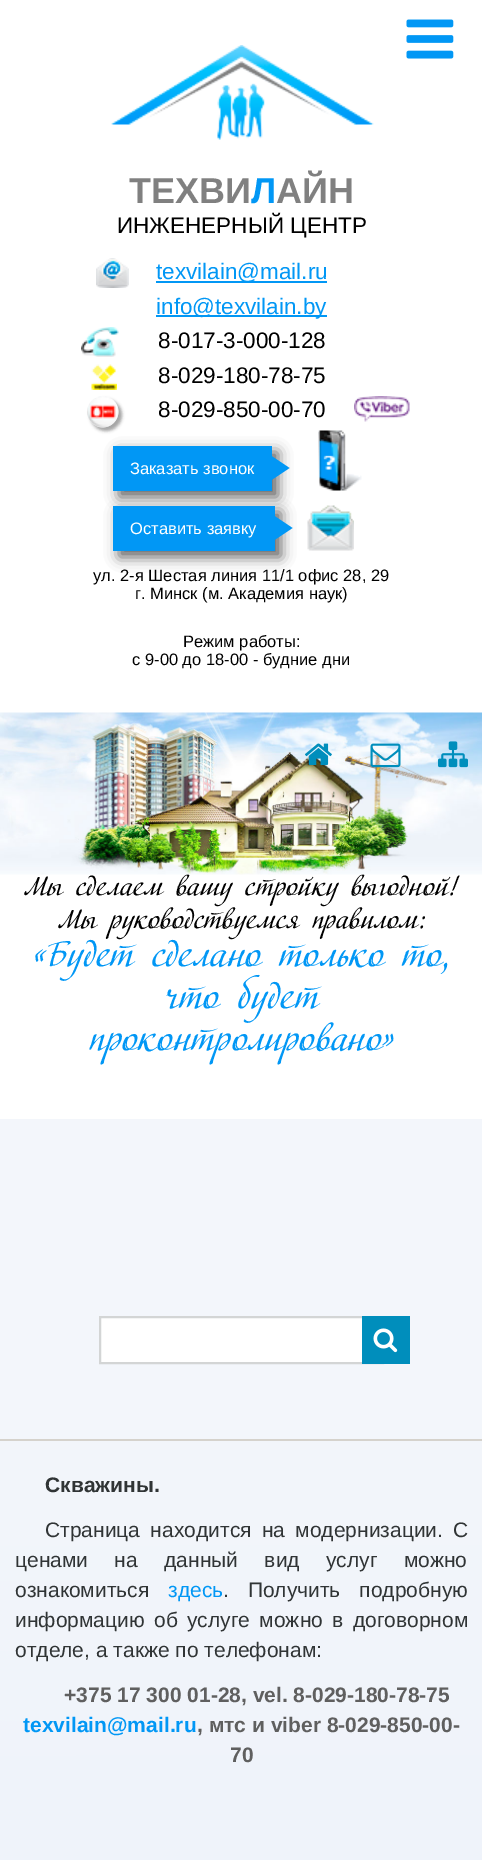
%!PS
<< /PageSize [482 1862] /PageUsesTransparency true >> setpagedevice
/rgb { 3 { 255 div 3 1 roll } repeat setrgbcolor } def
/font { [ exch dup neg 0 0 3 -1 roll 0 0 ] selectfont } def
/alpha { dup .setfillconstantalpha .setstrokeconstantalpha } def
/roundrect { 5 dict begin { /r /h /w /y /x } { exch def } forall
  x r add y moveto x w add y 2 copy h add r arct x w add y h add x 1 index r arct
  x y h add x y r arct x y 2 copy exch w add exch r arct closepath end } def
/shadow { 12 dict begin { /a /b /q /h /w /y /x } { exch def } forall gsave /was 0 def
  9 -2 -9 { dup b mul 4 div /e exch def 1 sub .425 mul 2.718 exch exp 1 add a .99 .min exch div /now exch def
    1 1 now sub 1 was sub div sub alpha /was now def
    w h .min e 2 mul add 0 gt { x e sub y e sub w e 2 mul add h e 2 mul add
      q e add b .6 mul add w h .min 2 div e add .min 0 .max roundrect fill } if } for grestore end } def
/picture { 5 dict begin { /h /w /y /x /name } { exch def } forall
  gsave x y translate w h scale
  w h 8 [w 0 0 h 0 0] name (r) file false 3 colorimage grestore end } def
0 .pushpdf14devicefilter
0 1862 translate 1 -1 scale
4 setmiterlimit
255 255 255 rgb
0 0 482 1862 rectfill
(img/1.rgb) 406 19 48 40 picture
(img/2.rgb) 111 45 263 95 picture
(img/3.rgb) 96 258 33 30 picture
1 151 245 rgb
156 281 171 2 rectfill
156 315 171 2 rectfill
(img/4.rgb) 81 327 38 30 picture
(img/5.rgb) 91 364 26 26 picture
gsave
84 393 moveto 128 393 lineto 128 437 lineto 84 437 lineto closepath 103 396 moveto 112 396 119 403 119 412 curveto 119 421 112 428 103 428 curveto 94 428 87 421 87 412 curveto 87 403 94 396 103 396 curveto closepath eoclip newpath
165 165 165 rgb
90 399 32 32 16 1.5 1 shadow
grestore
(img/6.rgb) 87 396 32 32 picture
(img/7.rgb) 354 396 56 26 picture
(img/8.rgb) 318 430 44 61 picture
95 95 95 rgb
119 452 159 45 0 7 1 shadow
1 151 245 rgb
113 446 159 45 rectfill
271.5 480 moveto 271.5 456 lineto 289.5 468 lineto closepath fill
(img/9.rgb) 307 505 47 46 picture
95 95 95 rgb
119 512 162 45 0 7 1 shadow
1 151 245 rgb
113 506 162 45 rectfill
274.5 540 moveto 274.5 516 lineto 292.5 528 lineto closepath fill
243 246 251 rgb
0 1119 482 320 rectfill
255 255 255 rgb
101 1318 261 44 rectfill
211 213 213 rgb
2 setlinewidth
100 1317 283 46 rectstroke
0 142 188 rgb
362 1316 48 48 rectfill
(img/14.rgb) 373 1328 25 25 picture
gsave 0 1441 moveto 482 1441 lineto 482 1860 lineto 0 1860 lineto closepath clip newpath
<< /ShadingType 2 /ColorSpace /DeviceRGB /Coords [241 1440 242 1860] /Extend [true true] /Function << /FunctionType 2 /Domain [0 1] /C0 [0.953 0.965 0.984] /C1 [0.937 0.953 0.98] /N 1 >> >> shfill grestore
213 210 204 rgb
0 1439 482 2 rectfill
/LiberationSans-Bold 36 font
128 128 128 rgb
129 203 moveto (ТЕХВИ) show
1 151 245 rgb
251 203 moveto (Л) show
128 128 128 rgb
276 203 moveto (АЙН) show
/LiberationSans-Regular 22.5 font
0 0 0 rgb
117 233 moveto (ИНЖЕНЕРНЫЙ ЦЕНТР) show
1 151 245 rgb
156 279 moveto (texvilain@mail.ru) show
156 314 moveto (info@texvilain.by) show
0 0 0 rgb
[
  [(8-017-3-000-128) 158 348]
  [(8-029-180-78-75) 158 383]
  [(8-029-850-00-70) 158 417]
] { aload pop moveto show } forall
/LiberationSans-Regular 16.5 font
255 255 255 rgb
130 474 moveto (Заказать звонок) show
130 534 moveto (Оставить заявку) show
0 0 0 rgb
[
  [(ул. 2-я Шестая линия 11/1 офис 28, 29) 93 581]
  [(г. Минск \(м. Академия наук\)) 135 599]
  [(Режим работы:) 183 647]
  [(с 9-00 до 18-00 - будние дни) 132 665]
] { aload pop moveto show } forall
/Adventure-Regular 27 font
25 895 moveto (Мы сделаем вашу стройку выгодной!) show
(img/10.rgb) 0 712 482 163 picture
(img/13.rgb) 438 741 30 27 picture
(img/12.rgb) 370 743 31 25 picture
(img/11.rgb) 305 743 27 22 picture
59 928 moveto (Мы руководствуемся правилом:) show
/Adventure-Regular 36 font
1 151 245 rgb
[
  [(«Будет сделано только то,) 33 966]
  [(что будет) 164 1008]
  [(проконтролировано») 89 1050]
] { aload pop moveto show } forall
/LiberationSans-Bold 21 font
48 52 53 rgb
45 1492 moveto (Скважины.) show
/LiberationSans-Regular 21 font
45 1537 moveto 4.5 0 32 (Страница находится на модернизации. С) widthshow
15 1567 moveto 20.5 0 32 (ценами на данный вид услуг можно) widthshow
15 1597 moveto (ознакомиться) show
1 151 245 rgb
168 1597 moveto (здесь) show
48 52 53 rgb
223 1597 moveto 13 0 32 (. Получить подробную) widthshow
15 1627 moveto 3.5 0 32 (информацию об услуге можно в договорном) widthshow
15 1657 moveto (отделе, а также по телефонам:) show
/LiberationSans-Bold 21 font
95 95 95 rgb
64 1702 moveto (+375 17 300 01-28, vel. 8-029-180-78-75) show
1 151 245 rgb
23 1732 moveto (texvilain@mail.ru) show
95 95 95 rgb
197 1732 moveto (, мтс и viber 8-029-850-00-) show
230 1762 moveto (70) show
.poppdf14devicefilter showpage
